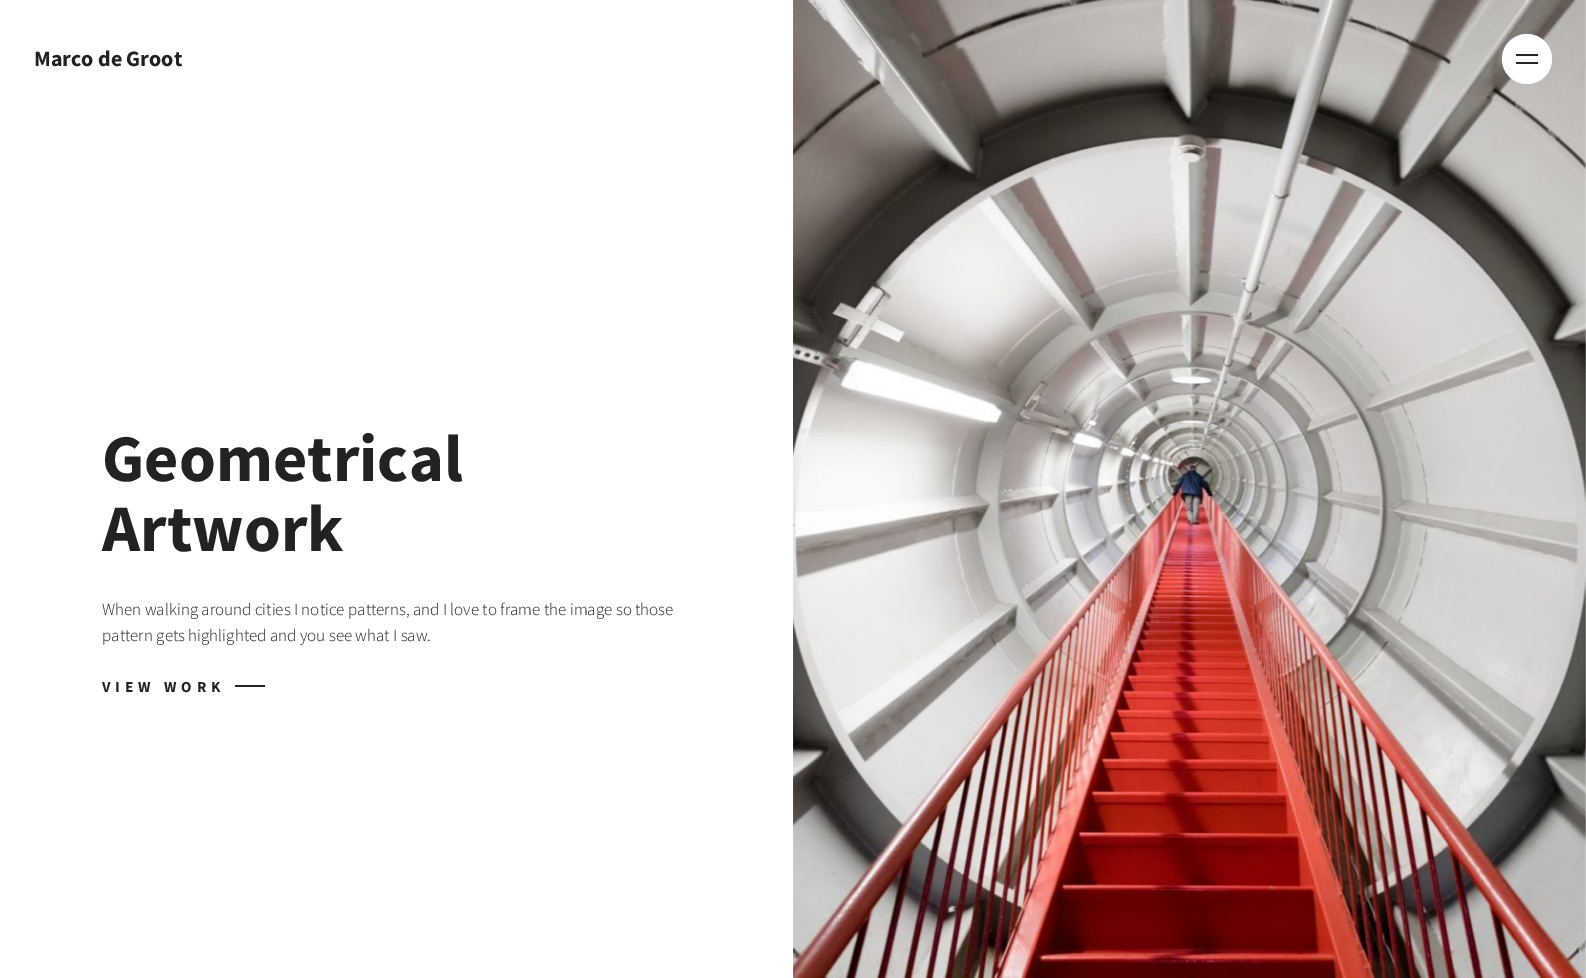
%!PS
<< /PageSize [1586 978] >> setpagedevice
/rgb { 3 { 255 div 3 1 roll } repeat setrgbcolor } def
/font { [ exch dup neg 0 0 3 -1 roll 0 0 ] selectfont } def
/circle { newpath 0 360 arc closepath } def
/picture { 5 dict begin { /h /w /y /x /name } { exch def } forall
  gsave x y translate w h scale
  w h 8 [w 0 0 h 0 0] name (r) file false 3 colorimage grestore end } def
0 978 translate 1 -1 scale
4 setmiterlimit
255 255 255 rgb
0 0 1586 978 rectfill
(img/1.rgb) 793 0 793 978 picture
1527 59 25 circle fill
[
  [1516 54 22 2 38 37 37]
  [1516 62 22 2 38 37 37]
  [235 685 30 2 38 37 37]
] { aload pop rgb rectfill } forall
/SourceSansPro-Bold 22 font
34 34 34 rgb
34 66 moveto (Marco de Groot) show
/SourceSansPro-Bold 66.5 font
102 481 moveto (Geometrical) show
102 551 moveto (Artwork) show
/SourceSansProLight-Light 17 font
102 615 moveto (When walking around cities I notice patterns, and I love to frame the image so those) show
102 641 moveto (pattern gets highlighted and you see what I saw.) show
/SourceSansPro-Bold 15.25 font
102 692 moveto 5 0 (VIEW WORK) ashow
showpage
